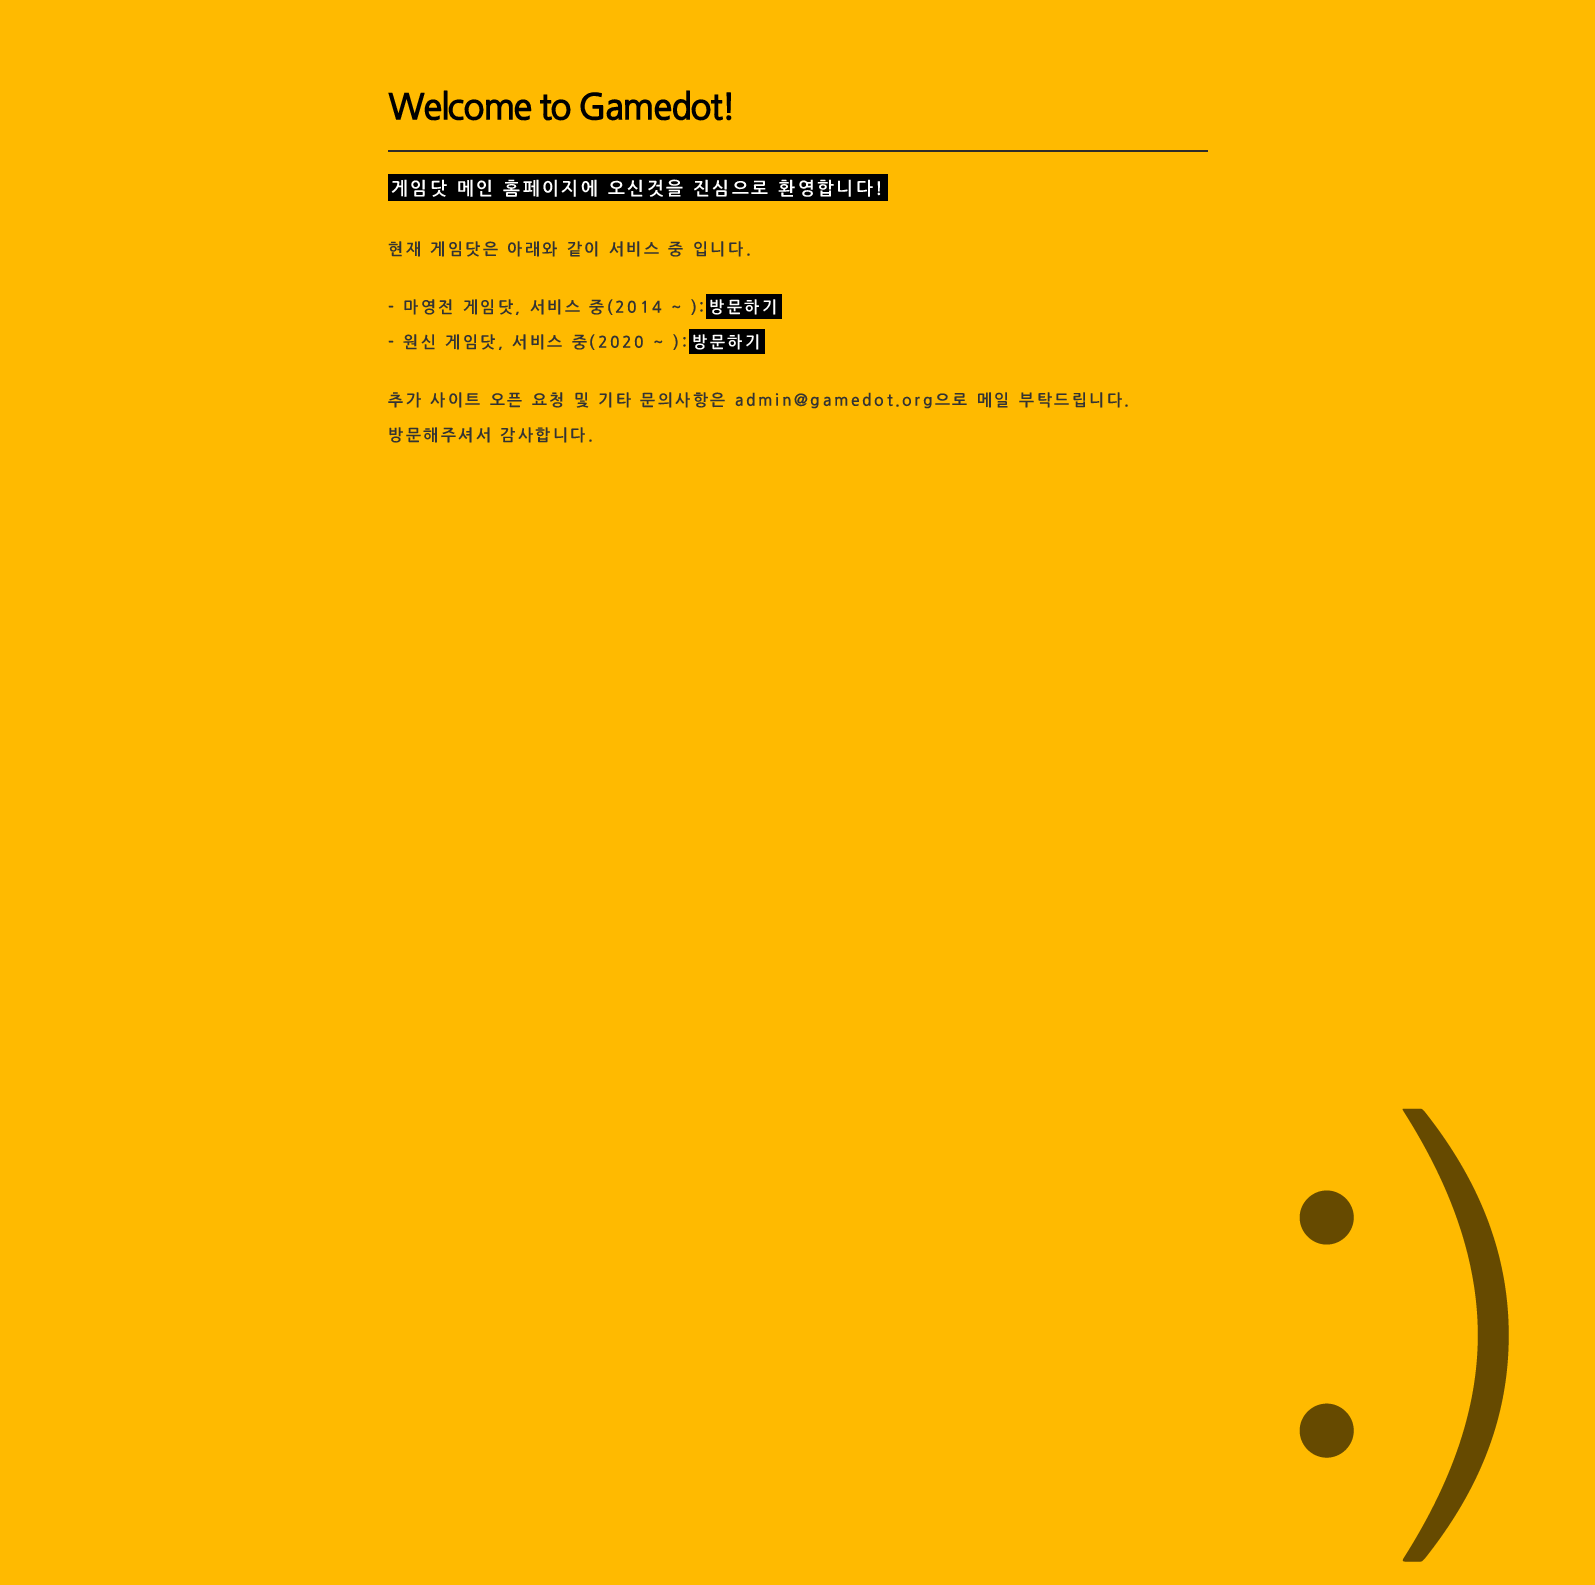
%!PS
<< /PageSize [1595 1585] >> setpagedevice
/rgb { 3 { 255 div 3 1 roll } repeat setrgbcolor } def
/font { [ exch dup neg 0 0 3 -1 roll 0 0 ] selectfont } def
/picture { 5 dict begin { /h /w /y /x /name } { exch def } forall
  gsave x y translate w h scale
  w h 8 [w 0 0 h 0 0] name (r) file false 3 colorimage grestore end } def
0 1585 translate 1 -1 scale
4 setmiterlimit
255 186 0 rgb
0 0 1595 1585 rectfill
(img/1.rgb) 1299 1108 210 454 picture
[
  [388 150 820 2 47 44 41]
  [388 174 500 27 0 0 0]
  [706 294 76 25 0 0 0]
  [689 329 76 25 0 0 0]
] { aload pop rgb rectfill } forall
/NanumGothic-Bold 36 font
388 118 moveto -2 0 (Welcome to Gamedot!) ashow
/NanumGothic-Bold 18 font
255 255 255 rgb
391 194 moveto 2.5 0 (게임닷 메인 홈페이지에 오신것을 진심으로 환영합니다!) ashow
/NanumGothic-Bold 16 font
51 51 51 rgb
388 254 moveto 2.5 0 (현재 게임닷은 아래와 같이 서비스 중 입니다.) ashow
388 312 moveto 2.5 0 (- 마영전 게임닷, 서비스 중\(2014 ~ \):) ashow
255 255 255 rgb
709 312 moveto 2.5 0 (방문하기) ashow
51 51 51 rgb
388 347 moveto 2.5 0 (- 원신 게임닷, 서비스 중\(2020 ~ \):) ashow
255 255 255 rgb
692 347 moveto 2.5 0 (방문하기) ashow
51 51 51 rgb
388 405 moveto 2.5 0 (추가 사이트 오픈 요청 및 기타 문의사항은 admin@gamedot.org으로 메일 부탁드립니다.) ashow
388 440 moveto 2.5 0 (방문해주셔서 감사합니다.) ashow
showpage
